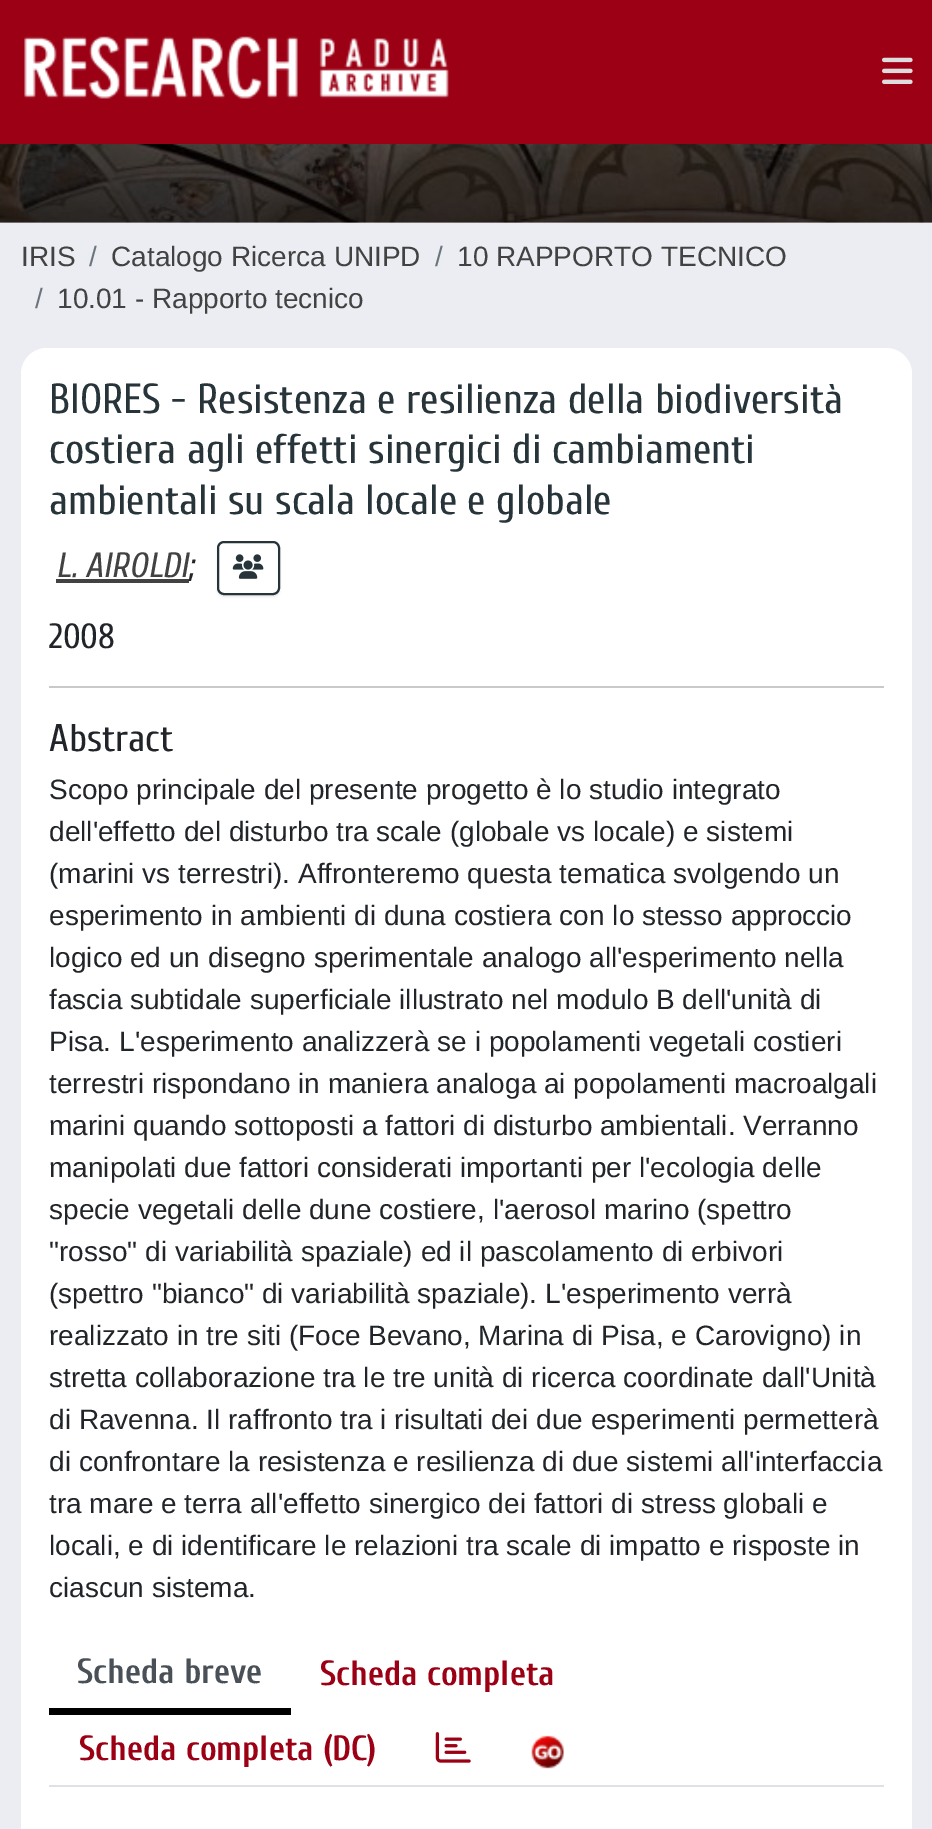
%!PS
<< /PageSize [932 1829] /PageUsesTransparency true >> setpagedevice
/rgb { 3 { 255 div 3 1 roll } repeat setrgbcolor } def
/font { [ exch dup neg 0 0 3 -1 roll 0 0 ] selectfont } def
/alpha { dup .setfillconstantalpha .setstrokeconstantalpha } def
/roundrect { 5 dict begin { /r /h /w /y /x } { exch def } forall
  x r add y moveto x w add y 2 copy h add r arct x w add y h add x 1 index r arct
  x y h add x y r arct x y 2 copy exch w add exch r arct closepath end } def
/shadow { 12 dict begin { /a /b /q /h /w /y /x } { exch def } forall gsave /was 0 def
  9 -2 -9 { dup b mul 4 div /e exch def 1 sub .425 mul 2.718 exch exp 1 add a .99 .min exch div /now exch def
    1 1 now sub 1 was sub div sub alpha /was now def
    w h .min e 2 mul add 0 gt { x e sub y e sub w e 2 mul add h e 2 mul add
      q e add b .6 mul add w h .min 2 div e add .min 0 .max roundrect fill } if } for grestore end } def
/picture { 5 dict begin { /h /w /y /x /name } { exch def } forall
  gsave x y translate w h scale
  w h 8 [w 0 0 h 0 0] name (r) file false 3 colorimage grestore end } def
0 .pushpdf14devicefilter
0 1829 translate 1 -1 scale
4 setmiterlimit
236 237 242 rgb
0 0 932 1829 rectfill
155 0 20 rgb
0 0 932 144 rectfill
(img/1.rgb) 24 36 425 63 picture
(img/2.rgb) 882 57 31 27 picture
(img/3.rgb) 0 144 932 79 picture
255 255 255 rgb
21 348 891 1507 26 roundrect fill
66 66 66 rgb
56 579 133 4 rectfill
gsave
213 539 moveto 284 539 lineto 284 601 lineto 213 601 lineto closepath 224 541 moveto 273 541 lineto 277 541 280 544 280 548 curveto 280 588 lineto 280 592 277 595 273 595 curveto 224 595 lineto 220 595 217 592 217 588 curveto 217 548 lineto 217 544 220 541 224 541 curveto closepath eoclip newpath
0 0 0 rgb
217 543 63 54 7 1 0.07 shadow
grestore
39 53 58 rgb
2 setlinewidth
218 542 61 52 6 roundrect stroke
(img/4.rgb) 232 554 32 25 picture
[
  [49 686 835 2 200 201 202]
  [49 1785 835 2 222 226 230]
  [49 1708 242 7 0 0 0]
] { aload pop rgb rectfill } forall
(img/5.rgb) 435 1732 36 31 picture
(img/6.rgb) 531 1735 33 34 picture
/LiberationSans-Regular 28 font
66 66 66 rgb
21 266 moveto (IRIS) show
108 117 125 rgb
89 266 moveto (/) show
66 66 66 rgb
111 266 moveto (Catalogo Ricerca UNIPD) show
108 117 125 rgb
435 266 moveto (/) show
66 66 66 rgb
457 266 moveto (10 RAPPORTO TECNICO) show
108 117 125 rgb
35 308 moveto (/) show
66 66 66 rgb
57 308 moveto (10.01 - Rapporto tecnico) show
/Cuprum-Regular 42 font
39 53 58 rgb
[
  [(BIORES - Resistenza e resilienza della biodiversità) 49 413]
  [(costiera agli effetti sinergici di cambiamenti) 49 463]
  [(ambientali su scala locale e globale) 49 514]
] { aload pop moveto show } forall
/Cuprum-Italic 35 font
66 66 66 rgb
56 577 moveto (L. AIROLDI) show
33 37 41 rgb
188 577 moveto (;) show
/Cuprum-Regular 35 font
49 648 moveto (2008) show
/Cuprum-Regular 38.5 font
49 751 moveto (Abstract) show
/LiberationSans-Regular 28 font
[
  [(Scopo principale del presente progetto è lo studio integrato) 49 799]
  [(dell'effetto del disturbo tra scale \(globale vs locale\) e sistemi) 49 841]
  [(\(marini vs terrestri\). Affronteremo questa tematica svolgendo un) 49 883]
  [(esperimento in ambienti di duna costiera con lo stesso approccio) 49 925]
  [(logico ed un disegno sperimentale analogo all'esperimento nella) 49 967]
  [(fascia subtidale superficiale illustrato nel modulo B dell'unità di) 49 1009]
  [(Pisa. L'esperimento analizzerà se i popolamenti vegetali costieri) 49 1051]
  [(terrestri rispondano in maniera analoga ai popolamenti macroalgali) 49 1093]
  [(marini quando sottoposti a fattori di disturbo ambientali. Verranno) 49 1135]
  [(manipolati due fattori considerati importanti per l'ecologia delle) 49 1177]
  [(specie vegetali delle dune costiere, l'aerosol marino \(spettro) 49 1219]
  [("rosso" di variabilità spaziale\) ed il pascolamento di erbivori) 49 1261]
  [(\(spettro "bianco" di variabilità spaziale\). L'esperimento verrà) 49 1303]
  [(realizzato in tre siti \(Foce Bevano, Marina di Pisa, e Carovigno\) in) 49 1345]
  [(stretta collaborazione tra le tre unità di ricerca coordinate dall'Unità) 49 1387]
  [(di Ravenna. Il raffronto tra i risultati dei due esperimenti permetterà) 49 1429]
  [(di confrontare la resistenza e resilienza di due sistemi all'interfaccia) 49 1471]
  [(tra mare e terra all'effetto sinergico dei fattori di stress globali e) 49 1513]
  [(locali, e di identificare le relazioni tra scale di impatto e risposte in) 49 1555]
  [(ciascun sistema.) 49 1597]
] { aload pop moveto show } forall
/Cuprum-Bold 35 font
73 80 87 rgb
77 1683 moveto (Scheda breve) show
155 0 20 rgb
320 1685 moveto (Scheda completa) show
79 1760 moveto (Scheda completa \(DC\)) show
.poppdf14devicefilter showpage
